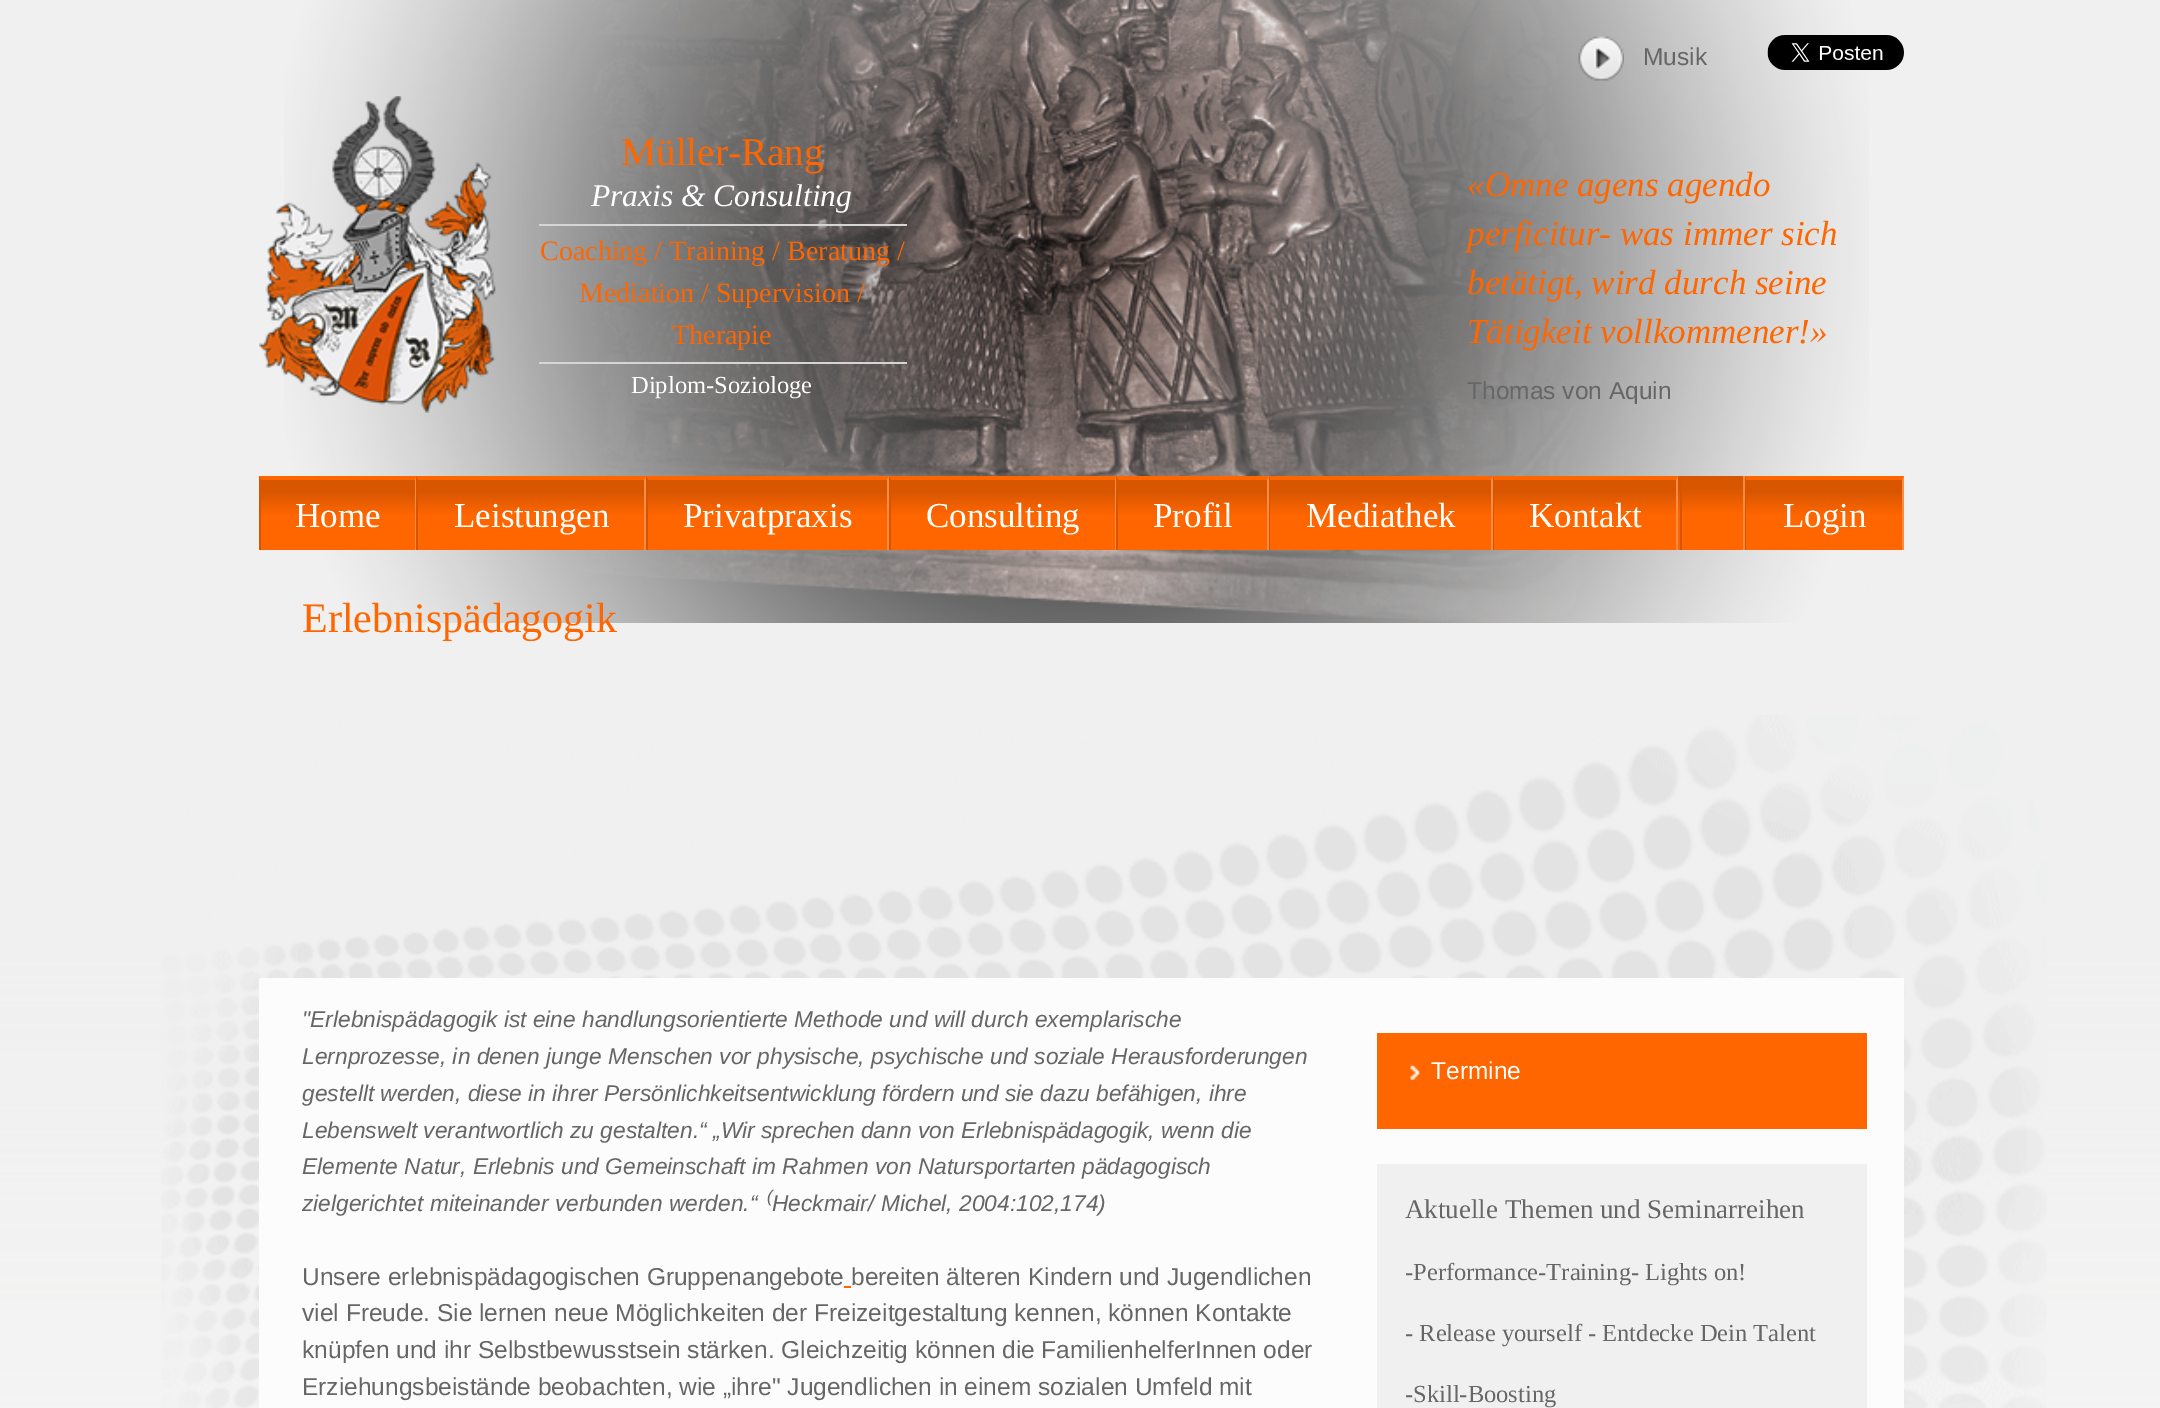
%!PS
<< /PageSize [2160 1408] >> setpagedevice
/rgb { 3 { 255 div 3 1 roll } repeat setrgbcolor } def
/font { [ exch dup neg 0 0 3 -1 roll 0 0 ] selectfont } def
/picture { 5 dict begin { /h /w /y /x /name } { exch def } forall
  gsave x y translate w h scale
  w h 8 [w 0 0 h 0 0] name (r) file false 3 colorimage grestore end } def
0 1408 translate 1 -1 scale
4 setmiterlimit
255 255 255 rgb
0 0 2160 1408 rectfill
240 240 240 rgb
0 0 2160 644 rectfill
(img/5.rgb) 284 0 1585 623 picture
(img/1.rgb) 1578 36 46 45 picture
(img/2.rgb) 1767 35 137 35 picture
(img/3.rgb) 259 96 237 317 picture
213 213 213 rgb
539 224 368 2 rectfill
539 362 368 2 rectfill
gsave 1678 476 moveto 1743 476 lineto 1743 550 lineto 1678 550 lineto closepath clip newpath
<< /ShadingType 2 /ColorSpace /DeviceRGB /Coords [1082 476 1082 550] /Extend [true true] /Function << /FunctionType 3 /Domain [0 1] /Functions [<< /FunctionType 2 /Domain [0 1] /C0 [0.847 0.337 0] /C1 [0.847 0.337 0] /N 1 >> << /FunctionType 2 /Domain [0 1] /C0 [0.847 0.337 0] /C1 [1 0.4 0] /N 1 >> << /FunctionType 2 /Domain [0 1] /C0 [1 0.4 0] /C1 [1 0.4 0] /N 1 >>] /Bounds [0.16 0.51] /Encode [0 1 0 1 0 1] >> >> shfill grestore
gsave 259 476 moveto 417 476 lineto 417 480 lineto 259 480 lineto closepath clip newpath
<< /ShadingType 2 /ColorSpace /DeviceRGB /Coords [338 410 338 480] /Extend [true true] /Function << /FunctionType 3 /Domain [0 1] /Functions [<< /FunctionType 2 /Domain [0 1] /C0 [0.847 0.337 0] /C1 [0.847 0.337 0] /N 1 >> << /FunctionType 2 /Domain [0 1] /C0 [0.847 0.337 0] /C1 [1 0.4 0] /N 1 >> << /FunctionType 2 /Domain [0 1] /C0 [1 0.4 0] /C1 [1 0.4 0] /N 1 >>] /Bounds [0.16 0.51] /Encode [0 1 0 1 0 1] >> >> shfill grestore
gsave 261 480 moveto 415 480 lineto 415 550 lineto 261 550 lineto closepath clip newpath
<< /ShadingType 2 /ColorSpace /DeviceRGB /Coords [338 480 338 550] /Extend [true true] /Function << /FunctionType 3 /Domain [0 1] /Functions [<< /FunctionType 2 /Domain [0 1] /C0 [0.847 0.337 0] /C1 [0.847 0.337 0] /N 1 >> << /FunctionType 2 /Domain [0 1] /C0 [0.847 0.337 0] /C1 [1 0.4 0] /N 1 >> << /FunctionType 2 /Domain [0 1] /C0 [1 0.4 0] /C1 [1 0.4 0] /N 1 >>] /Bounds [0.16 0.51] /Encode [0 1 0 1 0 1] >> >> shfill grestore
251 140 69 rgb
416 476 moveto 416 550 lineto 415 550 lineto 415 480 lineto closepath fill
213 85 0 rgb
259 550 moveto 259 476 lineto 261 480 lineto 261 550 lineto closepath fill
gsave 417 476 moveto 646 476 lineto 646 480 lineto 417 480 lineto closepath clip newpath
<< /ShadingType 2 /ColorSpace /DeviceRGB /Coords [531 410 531 480] /Extend [true true] /Function << /FunctionType 3 /Domain [0 1] /Functions [<< /FunctionType 2 /Domain [0 1] /C0 [0.847 0.337 0] /C1 [0.847 0.337 0] /N 1 >> << /FunctionType 2 /Domain [0 1] /C0 [0.847 0.337 0] /C1 [1 0.4 0] /N 1 >> << /FunctionType 2 /Domain [0 1] /C0 [1 0.4 0] /C1 [1 0.4 0] /N 1 >>] /Bounds [0.16 0.51] /Encode [0 1 0 1 0 1] >> >> shfill grestore
gsave 418 480 moveto 644 480 lineto 644 550 lineto 418 550 lineto closepath clip newpath
<< /ShadingType 2 /ColorSpace /DeviceRGB /Coords [531 480 531 550] /Extend [true true] /Function << /FunctionType 3 /Domain [0 1] /Functions [<< /FunctionType 2 /Domain [0 1] /C0 [0.847 0.337 0] /C1 [0.847 0.337 0] /N 1 >> << /FunctionType 2 /Domain [0 1] /C0 [0.847 0.337 0] /C1 [1 0.4 0] /N 1 >> << /FunctionType 2 /Domain [0 1] /C0 [1 0.4 0] /C1 [1 0.4 0] /N 1 >>] /Bounds [0.16 0.51] /Encode [0 1 0 1 0 1] >> >> shfill grestore
251 140 69 rgb
646 476 moveto 646 550 lineto 644 550 lineto 644 480 lineto closepath fill
213 85 0 rgb
416 550 moveto 416 476 lineto 418 480 lineto 418 550 lineto closepath fill
gsave 646 476 moveto 889 476 lineto 889 480 lineto 646 480 lineto closepath clip newpath
<< /ShadingType 2 /ColorSpace /DeviceRGB /Coords [767 410 767 480] /Extend [true true] /Function << /FunctionType 3 /Domain [0 1] /Functions [<< /FunctionType 2 /Domain [0 1] /C0 [0.847 0.337 0] /C1 [0.847 0.337 0] /N 1 >> << /FunctionType 2 /Domain [0 1] /C0 [0.847 0.337 0] /C1 [1 0.4 0] /N 1 >> << /FunctionType 2 /Domain [0 1] /C0 [1 0.4 0] /C1 [1 0.4 0] /N 1 >>] /Bounds [0.16 0.51] /Encode [0 1 0 1 0 1] >> >> shfill grestore
gsave 648 480 moveto 887 480 lineto 887 550 lineto 648 550 lineto closepath clip newpath
<< /ShadingType 2 /ColorSpace /DeviceRGB /Coords [767 480 767 550] /Extend [true true] /Function << /FunctionType 3 /Domain [0 1] /Functions [<< /FunctionType 2 /Domain [0 1] /C0 [0.847 0.337 0] /C1 [0.847 0.337 0] /N 1 >> << /FunctionType 2 /Domain [0 1] /C0 [0.847 0.337 0] /C1 [1 0.4 0] /N 1 >> << /FunctionType 2 /Domain [0 1] /C0 [1 0.4 0] /C1 [1 0.4 0] /N 1 >>] /Bounds [0.16 0.51] /Encode [0 1 0 1 0 1] >> >> shfill grestore
251 140 69 rgb
889 476 moveto 889 550 lineto 887 550 lineto 887 480 lineto closepath fill
213 85 0 rgb
646 550 moveto 646 476 lineto 648 480 lineto 648 550 lineto closepath fill
gsave 889 476 moveto 1117 476 lineto 1117 480 lineto 889 480 lineto closepath clip newpath
<< /ShadingType 2 /ColorSpace /DeviceRGB /Coords [1003 410 1003 480] /Extend [true true] /Function << /FunctionType 3 /Domain [0 1] /Functions [<< /FunctionType 2 /Domain [0 1] /C0 [0.847 0.337 0] /C1 [0.847 0.337 0] /N 1 >> << /FunctionType 2 /Domain [0 1] /C0 [0.847 0.337 0] /C1 [1 0.4 0] /N 1 >> << /FunctionType 2 /Domain [0 1] /C0 [1 0.4 0] /C1 [1 0.4 0] /N 1 >>] /Bounds [0.16 0.51] /Encode [0 1 0 1 0 1] >> >> shfill grestore
gsave 891 480 moveto 1115 480 lineto 1115 550 lineto 891 550 lineto closepath clip newpath
<< /ShadingType 2 /ColorSpace /DeviceRGB /Coords [1003 480 1003 550] /Extend [true true] /Function << /FunctionType 3 /Domain [0 1] /Functions [<< /FunctionType 2 /Domain [0 1] /C0 [0.847 0.337 0] /C1 [0.847 0.337 0] /N 1 >> << /FunctionType 2 /Domain [0 1] /C0 [0.847 0.337 0] /C1 [1 0.4 0] /N 1 >> << /FunctionType 2 /Domain [0 1] /C0 [1 0.4 0] /C1 [1 0.4 0] /N 1 >>] /Bounds [0.16 0.51] /Encode [0 1 0 1 0 1] >> >> shfill grestore
251 140 69 rgb
1116 476 moveto 1116 550 lineto 1115 550 lineto 1115 480 lineto closepath fill
213 85 0 rgb
889 550 moveto 889 476 lineto 891 480 lineto 891 550 lineto closepath fill
gsave 1117 476 moveto 1269 476 lineto 1269 480 lineto 1117 480 lineto closepath clip newpath
<< /ShadingType 2 /ColorSpace /DeviceRGB /Coords [1193 410 1193 480] /Extend [true true] /Function << /FunctionType 3 /Domain [0 1] /Functions [<< /FunctionType 2 /Domain [0 1] /C0 [0.847 0.337 0] /C1 [0.847 0.337 0] /N 1 >> << /FunctionType 2 /Domain [0 1] /C0 [0.847 0.337 0] /C1 [1 0.4 0] /N 1 >> << /FunctionType 2 /Domain [0 1] /C0 [1 0.4 0] /C1 [1 0.4 0] /N 1 >>] /Bounds [0.16 0.51] /Encode [0 1 0 1 0 1] >> >> shfill grestore
gsave 1118 480 moveto 1267 480 lineto 1267 550 lineto 1118 550 lineto closepath clip newpath
<< /ShadingType 2 /ColorSpace /DeviceRGB /Coords [1193 480 1193 550] /Extend [true true] /Function << /FunctionType 3 /Domain [0 1] /Functions [<< /FunctionType 2 /Domain [0 1] /C0 [0.847 0.337 0] /C1 [0.847 0.337 0] /N 1 >> << /FunctionType 2 /Domain [0 1] /C0 [0.847 0.337 0] /C1 [1 0.4 0] /N 1 >> << /FunctionType 2 /Domain [0 1] /C0 [1 0.4 0] /C1 [1 0.4 0] /N 1 >>] /Bounds [0.16 0.51] /Encode [0 1 0 1 0 1] >> >> shfill grestore
251 140 69 rgb
1269 476 moveto 1269 550 lineto 1267 550 lineto 1267 480 lineto closepath fill
213 85 0 rgb
1116 550 moveto 1116 476 lineto 1118 480 lineto 1118 550 lineto closepath fill
gsave 1269 476 moveto 1493 476 lineto 1493 480 lineto 1269 480 lineto closepath clip newpath
<< /ShadingType 2 /ColorSpace /DeviceRGB /Coords [1381 410 1381 480] /Extend [true true] /Function << /FunctionType 3 /Domain [0 1] /Functions [<< /FunctionType 2 /Domain [0 1] /C0 [0.847 0.337 0] /C1 [0.847 0.337 0] /N 1 >> << /FunctionType 2 /Domain [0 1] /C0 [0.847 0.337 0] /C1 [1 0.4 0] /N 1 >> << /FunctionType 2 /Domain [0 1] /C0 [1 0.4 0] /C1 [1 0.4 0] /N 1 >>] /Bounds [0.16 0.51] /Encode [0 1 0 1 0 1] >> >> shfill grestore
gsave 1270 480 moveto 1491 480 lineto 1491 550 lineto 1270 550 lineto closepath clip newpath
<< /ShadingType 2 /ColorSpace /DeviceRGB /Coords [1381 480 1381 550] /Extend [true true] /Function << /FunctionType 3 /Domain [0 1] /Functions [<< /FunctionType 2 /Domain [0 1] /C0 [0.847 0.337 0] /C1 [0.847 0.337 0] /N 1 >> << /FunctionType 2 /Domain [0 1] /C0 [0.847 0.337 0] /C1 [1 0.4 0] /N 1 >> << /FunctionType 2 /Domain [0 1] /C0 [1 0.4 0] /C1 [1 0.4 0] /N 1 >>] /Bounds [0.16 0.51] /Encode [0 1 0 1 0 1] >> >> shfill grestore
251 140 69 rgb
1493 476 moveto 1493 550 lineto 1491 550 lineto 1491 480 lineto closepath fill
213 85 0 rgb
1269 550 moveto 1269 476 lineto 1270 480 lineto 1270 550 lineto closepath fill
gsave 1493 476 moveto 1678 476 lineto 1678 480 lineto 1493 480 lineto closepath clip newpath
<< /ShadingType 2 /ColorSpace /DeviceRGB /Coords [1586 410 1586 480] /Extend [true true] /Function << /FunctionType 3 /Domain [0 1] /Functions [<< /FunctionType 2 /Domain [0 1] /C0 [0.847 0.337 0] /C1 [0.847 0.337 0] /N 1 >> << /FunctionType 2 /Domain [0 1] /C0 [0.847 0.337 0] /C1 [1 0.4 0] /N 1 >> << /FunctionType 2 /Domain [0 1] /C0 [1 0.4 0] /C1 [1 0.4 0] /N 1 >>] /Bounds [0.16 0.51] /Encode [0 1 0 1 0 1] >> >> shfill grestore
gsave 1494 480 moveto 1676 480 lineto 1676 550 lineto 1494 550 lineto closepath clip newpath
<< /ShadingType 2 /ColorSpace /DeviceRGB /Coords [1586 480 1586 550] /Extend [true true] /Function << /FunctionType 3 /Domain [0 1] /Functions [<< /FunctionType 2 /Domain [0 1] /C0 [0.847 0.337 0] /C1 [0.847 0.337 0] /N 1 >> << /FunctionType 2 /Domain [0 1] /C0 [0.847 0.337 0] /C1 [1 0.4 0] /N 1 >> << /FunctionType 2 /Domain [0 1] /C0 [1 0.4 0] /C1 [1 0.4 0] /N 1 >>] /Bounds [0.16 0.51] /Encode [0 1 0 1 0 1] >> >> shfill grestore
251 140 69 rgb
1678 476 moveto 1678 550 lineto 1676 550 lineto 1676 480 lineto closepath fill
213 85 0 rgb
1493 550 moveto 1493 476 lineto 1494 480 lineto 1494 550 lineto closepath fill
1680 476 2 74 rectfill
gsave 1745 476 moveto 1904 476 lineto 1904 480 lineto 1745 480 lineto closepath clip newpath
<< /ShadingType 2 /ColorSpace /DeviceRGB /Coords [1824 410 1824 480] /Extend [true true] /Function << /FunctionType 3 /Domain [0 1] /Functions [<< /FunctionType 2 /Domain [0 1] /C0 [0.847 0.337 0] /C1 [0.847 0.337 0] /N 1 >> << /FunctionType 2 /Domain [0 1] /C0 [0.847 0.337 0] /C1 [1 0.4 0] /N 1 >> << /FunctionType 2 /Domain [0 1] /C0 [1 0.4 0] /C1 [1 0.4 0] /N 1 >>] /Bounds [0.16 0.51] /Encode [0 1 0 1 0 1] >> >> shfill grestore
gsave 1746 480 moveto 1902 480 lineto 1902 550 lineto 1746 550 lineto closepath clip newpath
<< /ShadingType 2 /ColorSpace /DeviceRGB /Coords [1824 480 1824 550] /Extend [true true] /Function << /FunctionType 3 /Domain [0 1] /Functions [<< /FunctionType 2 /Domain [0 1] /C0 [0.847 0.337 0] /C1 [0.847 0.337 0] /N 1 >> << /FunctionType 2 /Domain [0 1] /C0 [0.847 0.337 0] /C1 [1 0.4 0] /N 1 >> << /FunctionType 2 /Domain [0 1] /C0 [1 0.4 0] /C1 [1 0.4 0] /N 1 >>] /Bounds [0.16 0.51] /Encode [0 1 0 1 0 1] >> >> shfill grestore
251 140 69 rgb
1904 476 moveto 1904 550 lineto 1902 550 lineto 1902 480 lineto closepath fill
213 85 0 rgb
1745 550 moveto 1745 476 lineto 1746 480 lineto 1746 550 lineto closepath fill
251 140 69 rgb
1743 476 2 74 rectfill
(img/6.rgb) 0 644 2160 764 picture
(img/7.rgb) 161 715 1886 693 picture
252 252 252 rgb
259 978 1645 430 rectfill
255 102 0 rgb
1377 1033 490 96 rectfill
(img/4.rgb) 1410 1065 10 15 picture
240 240 240 rgb
1377 1164 490 244 rectfill
/LiberationSans-Regular 24.5 font
102 102 102 rgb
1643 65 moveto (Musik) show
/LiberationSerif-Regular 39.25 font
255 102 0 rgb
621 165 moveto (Müller-Rang) show
/LiberationSerif-Italic 31.5 font
255 255 255 rgb
591 206 moveto (Praxis & Consulting) show
/LiberationSerif-Regular 28 font
255 102 0 rgb
[
  [(Coaching / Training / Beratung /) 540 260]
  [(Mediation / Supervision /) 579 302]
  [(Therapie) 672 344]
] { aload pop moveto show } forall
/LiberationSerif-Regular 24.5 font
255 255 255 rgb
631 393 moveto (Diplom-Soziologe) show
/LiberationSerif-Regular 35 font
[
  [(Home) 295 527]
  [(Leistungen) 454 527]
  [(Privatpraxis) 683 527]
  [(Consulting) 926 527]
  [(Profil) 1153 527]
  [(Mediathek) 1306 527]
  [(Kontakt) 1529 527]
  [(Login) 1783 527]
] { aload pop moveto show } forall
/LiberationSerif-Regular 42 font
255 102 0 rgb
302 632 moveto (Erlebnispädagogik) show
/LiberationSans-Italic 22.75 font
102 102 102 rgb
[
  [("Erlebnispädagogik ist eine handlungsorientierte Methode und will durch exemplarische) 302 1027]
  [(Lernprozesse, in denen junge Menschen vor physische, psychische und soziale Herausforderungen) 302 1064]
  [(gestellt werden, diese in ihrer Persönlichkeitsentwicklung fördern und sie dazu befähigen, ihre) 302 1101]
  [(Lebenswelt verantwortlich zu gestalten.“ „Wir sprechen dann von Erlebnispädagogik, wenn die) 302 1138]
  [(Elemente Natur, Erlebnis und Gemeinschaft im Rahmen von Natursportarten pädagogisch) 302 1174]
  [(zielgerichtet miteinander verbunden werden.“) 302 1211]
  [(Heckmair/ Michel, 2004:102,174\)) 772 1211]
] { aload pop moveto show } forall
/LiberationSans-Italic 17 font
767 1202 moveto (\() show
/LiberationSans-Regular 24.5 font
302 1285 moveto (Unsere erlebnispädagogischen Gruppenangebote bereiten älteren Kindern und Jugendlichen) show
255 102 0 rgb
844 1286 7 2 rectfill
102 102 102 rgb
[
  [(viel Freude. Sie lernen neue Möglichkeiten der Freizeitgestaltung kennen, können Kontakte) 302 1321]
  [(knüpfen und ihr Selbstbewusstsein stärken. Gleichzeitig können die FamilienhelferInnen oder) 302 1358]
  [(Erziehungsbeistände beobachten, wie „ihre" Jugendlichen in einem sozialen Umfeld mit) 302 1395]
] { aload pop moveto show } forall
255 255 255 rgb
1431 1079 moveto (Termine) show
/LiberationSerif-Regular 27 font
102 102 102 rgb
1405 1218 moveto (Aktuelle Themen und Seminarreihen) show
/LiberationSerif-Regular 24.5 font
[
  [(-Performance-Training- Lights on!) 1405 1280]
  [(- Release yourself - Entdecke Dein Talent) 1405 1341]
  [(-Skill-Boosting) 1405 1402]
] { aload pop moveto show } forall
/LiberationSerif-Italic 35 font
255 102 0 rgb
[
  [(«Omne agens agendo) 1467 196]
  [(perficitur- was immer sich) 1467 245]
  [(betätigt, wird durch seine) 1467 294]
  [(Tätigkeit vollkommener!») 1467 343]
] { aload pop moveto show } forall
/LiberationSans-Regular 24.5 font
102 102 102 rgb
1467 399 moveto (Thomas von Aquin) show
showpage
